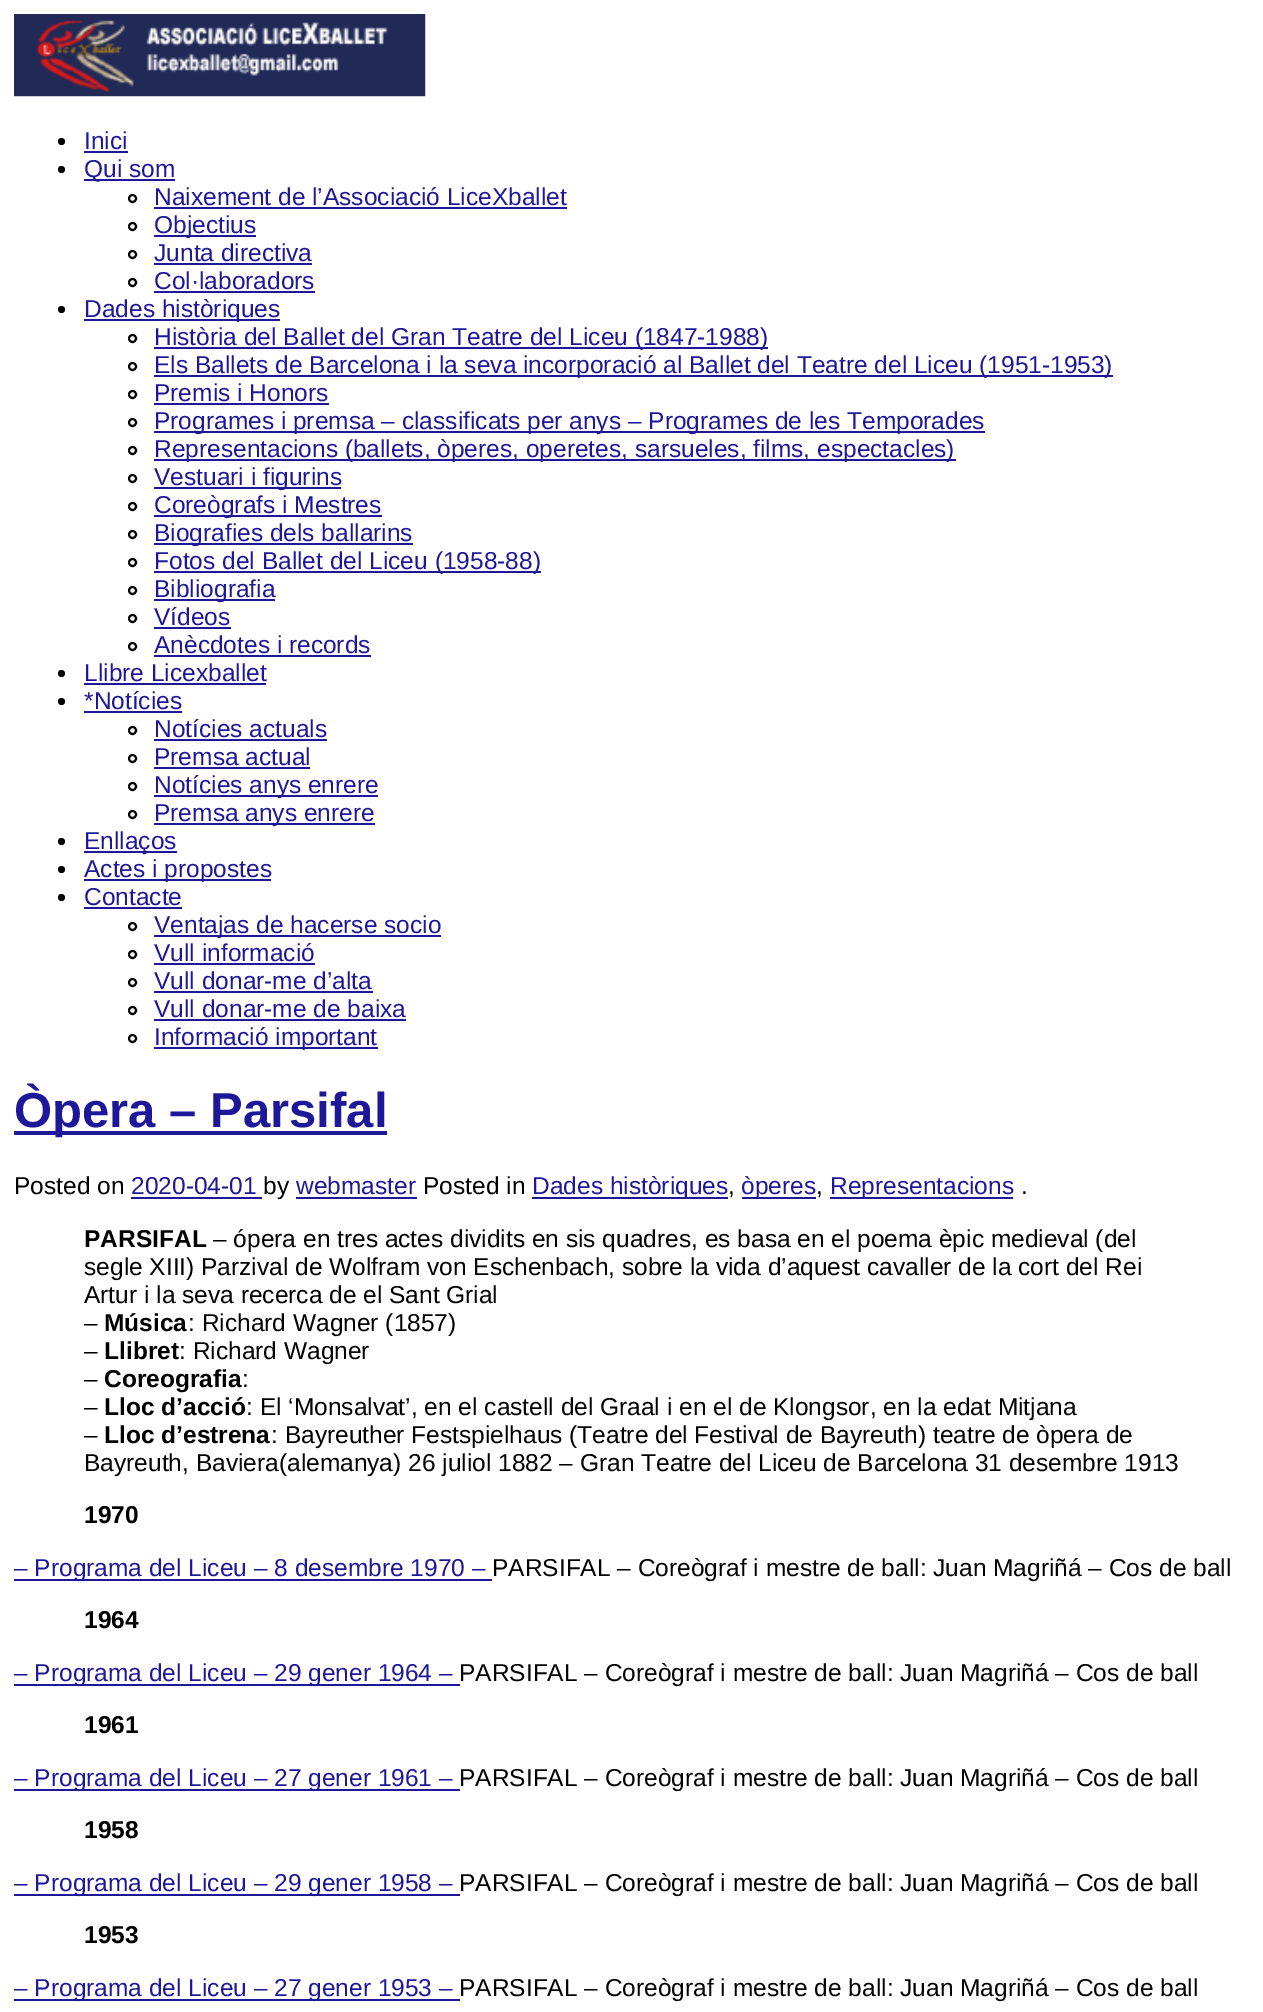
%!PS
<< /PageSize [1263 2012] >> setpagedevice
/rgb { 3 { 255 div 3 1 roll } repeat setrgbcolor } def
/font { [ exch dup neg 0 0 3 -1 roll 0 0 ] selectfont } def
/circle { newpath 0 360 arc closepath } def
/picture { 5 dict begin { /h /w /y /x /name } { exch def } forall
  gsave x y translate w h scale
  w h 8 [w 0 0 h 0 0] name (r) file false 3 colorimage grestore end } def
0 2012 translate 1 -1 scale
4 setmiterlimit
255 255 255 rgb
0 0 1263 2012 rectfill
(img/1.rgb) 14 14 412 83 picture
0 0 0 rgb
61.5 141.5 3.5 circle fill
30 24 153 rgb
84 151 44 2 rectfill
0 0 0 rgb
61.5 169.5 3.5 circle fill
30 24 153 rgb
84 179 91 2 rectfill
0 0 0 rgb
2 setlinewidth
132.5 198.5 3.5 circle stroke
30 24 153 rgb
154 207 413 2 rectfill
0 0 0 rgb
132.5 226.5 3.5 circle stroke
30 24 153 rgb
154 235 102 2 rectfill
0 0 0 rgb
132.5 254.5 3.5 circle stroke
30 24 153 rgb
154 263 158 2 rectfill
0 0 0 rgb
132.5 282.5 3.5 circle stroke
30 24 153 rgb
154 291 161 2 rectfill
0 0 0 rgb
61.5 309.5 3.5 circle fill
30 24 153 rgb
84 319 196 2 rectfill
0 0 0 rgb
132.5 338.5 3.5 circle stroke
30 24 153 rgb
154 347 614 2 rectfill
0 0 0 rgb
132.5 366.5 3.5 circle stroke
30 24 153 rgb
154 375 959 2 rectfill
0 0 0 rgb
132.5 394.5 3.5 circle stroke
30 24 153 rgb
154 403 175 2 rectfill
0 0 0 rgb
132.5 422.5 3.5 circle stroke
30 24 153 rgb
154 431 831 2 rectfill
0 0 0 rgb
132.5 450.5 3.5 circle stroke
30 24 153 rgb
154 459 802 2 rectfill
0 0 0 rgb
132.5 478.5 3.5 circle stroke
30 24 153 rgb
154 487 187 2 rectfill
0 0 0 rgb
132.5 506.5 3.5 circle stroke
30 24 153 rgb
154 515 228 2 rectfill
0 0 0 rgb
132.5 534.5 3.5 circle stroke
30 24 153 rgb
154 543 259 2 rectfill
0 0 0 rgb
132.5 562.5 3.5 circle stroke
30 24 153 rgb
154 571 387 2 rectfill
0 0 0 rgb
132.5 590.5 3.5 circle stroke
30 24 153 rgb
154 599 121 2 rectfill
0 0 0 rgb
132.5 618.5 3.5 circle stroke
30 24 153 rgb
154 627 77 2 rectfill
0 0 0 rgb
132.5 646.5 3.5 circle stroke
30 24 153 rgb
154 655 217 2 rectfill
0 0 0 rgb
61.5 673.5 3.5 circle fill
30 24 153 rgb
84 683 182 2 rectfill
0 0 0 rgb
61.5 701.5 3.5 circle fill
30 24 153 rgb
84 711 98 2 rectfill
0 0 0 rgb
132.5 730.5 3.5 circle stroke
30 24 153 rgb
154 739 173 2 rectfill
0 0 0 rgb
132.5 758.5 3.5 circle stroke
30 24 153 rgb
154 767 156 2 rectfill
0 0 0 rgb
132.5 786.5 3.5 circle stroke
30 24 153 rgb
154 795 224 2 rectfill
0 0 0 rgb
132.5 814.5 3.5 circle stroke
30 24 153 rgb
154 823 221 2 rectfill
0 0 0 rgb
61.5 841.5 3.5 circle fill
30 24 153 rgb
84 851 93 2 rectfill
0 0 0 rgb
61.5 869.5 3.5 circle fill
30 24 153 rgb
84 879 187 2 rectfill
0 0 0 rgb
61.5 897.5 3.5 circle fill
30 24 153 rgb
84 907 98 2 rectfill
0 0 0 rgb
132.5 926.5 3.5 circle stroke
30 24 153 rgb
154 935 287 2 rectfill
0 0 0 rgb
132.5 954.5 3.5 circle stroke
30 24 153 rgb
154 963 161 2 rectfill
0 0 0 rgb
132.5 982.5 3.5 circle stroke
30 24 153 rgb
154 991 219 2 rectfill
0 0 0 rgb
132.5 1010.5 3.5 circle stroke
30 24 153 rgb
154 1019 252 2 rectfill
0 0 0 rgb
132.5 1038.5 3.5 circle stroke
[
  [154 1047 224 2 30 24 153]
  [14 1131 373 4 30 24 153]
  [131 1197 131 2 30 24 153]
  [296 1197 121 2 30 24 153]
  [532 1197 196 2 30 24 153]
  [742 1197 74 2 30 24 153]
  [830 1197 183 2 30 24 153]
  [14 1579 478 2 30 24 153]
  [14 1684 446 2 30 24 153]
  [14 1789 446 2 30 24 153]
  [14 1894 446 2 30 24 153]
  [14 1999 446 2 30 24 153]
] { aload pop rgb rectfill } forall
/LiberationSans-Regular 24.5 font
[
  [(Inici) 84 149]
  [(Qui som) 84 177]
  [(Naixement de l’Associació LiceXballet) 154 205]
  [(Objectius) 154 233]
  [(Junta directiva) 154 261]
  [(Col·laboradors) 154 289]
  [(Dades històriques) 84 317]
  [(Història del Ballet del Gran Teatre del Liceu \(1847-1988\)) 154 345]
  [(Els Ballets de Barcelona i la seva incorporació al Ballet del Teatre del Liceu \(1951-1953\)) 154 373]
  [(Premis i Honors) 154 401]
  [(Programes i premsa – classificats per anys – Programes de les Temporades) 154 429]
  [(Representacions \(ballets, òperes, operetes, sarsueles, films, espectacles\)) 154 457]
  [(Vestuari i figurins) 154 485]
  [(Coreògrafs i Mestres) 154 513]
  [(Biografies dels ballarins) 154 541]
  [(Fotos del Ballet del Liceu \(1958-88\)) 154 569]
  [(Bibliografia) 154 597]
  [(Vídeos) 154 625]
  [(Anècdotes i records) 154 653]
  [(Llibre Licexballet) 84 681]
  [(*Notícies) 84 709]
  [(Notícies actuals) 154 737]
  [(Premsa actual) 154 765]
  [(Notícies anys enrere) 154 793]
  [(Premsa anys enrere) 154 821]
  [(Enllaços) 84 849]
  [(Actes i propostes) 84 877]
  [(Contacte) 84 905]
  [(Ventajas de hacerse socio) 154 933]
  [(Vull informació) 154 961]
  [(Vull donar-me d’alta) 154 989]
  [(Vull donar-me de baixa) 154 1017]
  [(Informació important) 154 1045]
] { aload pop moveto show } forall
/LiberationSans-Bold 49 font
14 1127 moveto (Òpera – Parsifal) show
/LiberationSans-Regular 24.5 font
0 0 0 rgb
14 1194 moveto (Posted on) show
30 24 153 rgb
131 1194 moveto (2020-04-01) show
0 0 0 rgb
263 1194 moveto (by) show
30 24 153 rgb
296 1194 moveto (webmaster) show
0 0 0 rgb
423 1194 moveto (Posted in) show
30 24 153 rgb
532 1194 moveto (Dades històriques) show
0 0 0 rgb
728 1194 moveto (,) show
30 24 153 rgb
741 1194 moveto (òperes) show
0 0 0 rgb
816 1194 moveto (,) show
30 24 153 rgb
830 1194 moveto (Representacions) show
0 0 0 rgb
1021 1194 moveto (.) show
/LiberationSans-Bold 24.5 font
84 1247 moveto (PARSIFAL) show
/LiberationSans-Regular 24.5 font
[
  [(– ópera en tres actes dividits en sis quadres, es basa en el poema èpic medieval \(del) 213 1247]
  [(segle XIII\) Parzival de Wolfram von Eschenbach, sobre la vida d’aquest cavaller de la cort del Rei) 84 1275]
  [(Artur i la seva recerca de el Sant Grial) 84 1303]
  [(–) 84 1331]
] { aload pop moveto show } forall
/LiberationSans-Bold 24.5 font
104 1331 moveto (Música) show
/LiberationSans-Regular 24.5 font
188 1331 moveto (: Richard Wagner \(1857\)) show
84 1359 moveto (–) show
/LiberationSans-Bold 24.5 font
104 1359 moveto (Llibret) show
/LiberationSans-Regular 24.5 font
179 1359 moveto (: Richard Wagner) show
84 1387 moveto (–) show
/LiberationSans-Bold 24.5 font
104 1387 moveto (Coreografia) show
/LiberationSans-Regular 24.5 font
242 1387 moveto (:) show
84 1415 moveto (–) show
/LiberationSans-Bold 24.5 font
104 1415 moveto (Lloc d’acció) show
/LiberationSans-Regular 24.5 font
246 1415 moveto (: El ‘Monsalvat’, en el castell del Graal i en el de Klongsor, en la edat Mitjana) show
84 1443 moveto (–) show
/LiberationSans-Bold 24.5 font
104 1443 moveto (Lloc d’estrena) show
/LiberationSans-Regular 24.5 font
271 1443 moveto (: Bayreuther Festspielhaus \(Teatre del Festival de Bayreuth\) teatre de òpera de) show
84 1471 moveto (Bayreuth, Baviera\(alemanya\) 26 juliol 1882 – Gran Teatre del Liceu de Barcelona 31 desembre 1913) show
/LiberationSans-Bold 24.5 font
84 1523 moveto (1970) show
/LiberationSans-Regular 24.5 font
30 24 153 rgb
14 1576 moveto (– Programa del Liceu – 8 desembre 1970 –) show
0 0 0 rgb
492 1576 moveto (PARSIFAL – Coreògraf i mestre de ball: Juan Magriñá – Cos de ball) show
/LiberationSans-Bold 24.5 font
84 1628 moveto (1964) show
/LiberationSans-Regular 24.5 font
30 24 153 rgb
14 1681 moveto (– Programa del Liceu – 29 gener 1964 –) show
0 0 0 rgb
459 1681 moveto (PARSIFAL – Coreògraf i mestre de ball: Juan Magriñá – Cos de ball) show
/LiberationSans-Bold 24.5 font
84 1733 moveto (1961) show
/LiberationSans-Regular 24.5 font
30 24 153 rgb
14 1786 moveto (– Programa del Liceu – 27 gener 1961 –) show
0 0 0 rgb
459 1786 moveto (PARSIFAL – Coreògraf i mestre de ball: Juan Magriñá – Cos de ball) show
/LiberationSans-Bold 24.5 font
84 1838 moveto (1958) show
/LiberationSans-Regular 24.5 font
30 24 153 rgb
14 1891 moveto (– Programa del Liceu – 29 gener 1958 –) show
0 0 0 rgb
459 1891 moveto (PARSIFAL – Coreògraf i mestre de ball: Juan Magriñá – Cos de ball) show
/LiberationSans-Bold 24.5 font
84 1943 moveto (1953) show
/LiberationSans-Regular 24.5 font
30 24 153 rgb
14 1996 moveto (– Programa del Liceu – 27 gener 1953 –) show
0 0 0 rgb
459 1996 moveto (PARSIFAL – Coreògraf i mestre de ball: Juan Magriñá – Cos de ball) show
showpage
